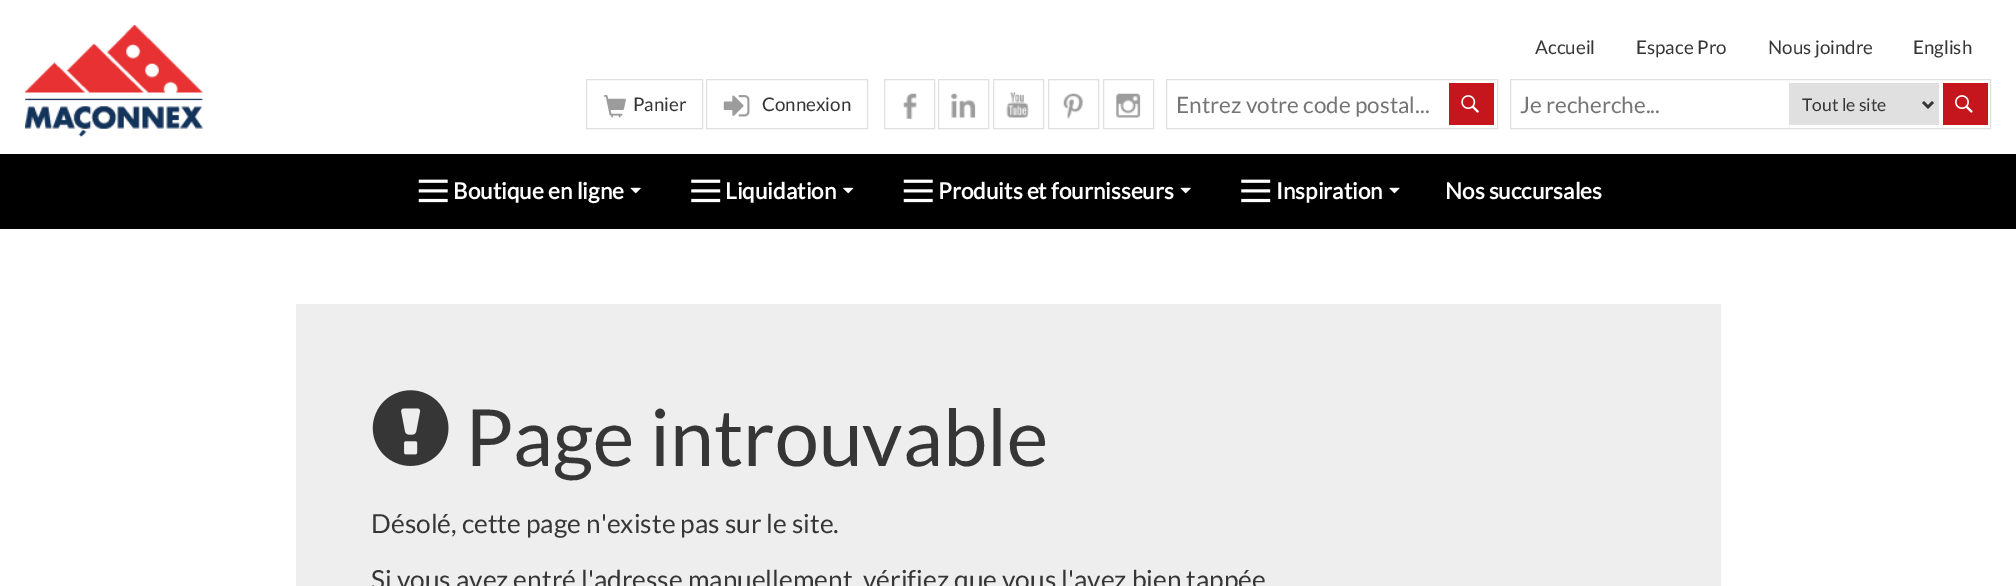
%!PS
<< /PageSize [2016 586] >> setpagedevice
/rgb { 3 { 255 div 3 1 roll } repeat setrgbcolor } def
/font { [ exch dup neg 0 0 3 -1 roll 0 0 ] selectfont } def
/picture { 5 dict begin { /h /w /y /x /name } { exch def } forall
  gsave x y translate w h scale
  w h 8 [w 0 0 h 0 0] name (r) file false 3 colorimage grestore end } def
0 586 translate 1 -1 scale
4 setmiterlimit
255 255 255 rgb
0 0 2016 586 rectfill
(img/1.rgb) 25 25 178 112 picture
224 224 224 rgb
586.5 79.5 116 49 rectstroke
(img/2.rgb) 603 95 23 23 picture
706.5 79.5 161 49 rectstroke
(img/3.rgb) 723 95 27 22 picture
884.5 79.5 50 49 rectstroke
(img/4.rgb) 903 93 14 26 picture
938.5 79.5 50 49 rectstroke
(img/5.rgb) 951 93 25 25 picture
993.5 79.5 50 49 rectstroke
(img/6.rgb) 1006 92 23 26 picture
1048.5 79.5 50 49 rectstroke
(img/7.rgb) 1063 93 20 26 picture
1103.5 79.5 50 49 rectstroke
(img/8.rgb) 1116 93 25 25 picture
1166.5 79.5 331 49 rectstroke
196 22 28 rgb
1449 83 45 42 rectfill
(img/9.rgb) 1461 95 18 18 picture
224 224 224 rgb
1510.5 79.5 480 49 rectstroke
1789 83 150 42 rectfill
54 54 54 rgb
2.5 setlinewidth
1923 102 moveto 1928 107 lineto 1933 102 lineto stroke
196 22 28 rgb
1943 83 45 42 rectfill
(img/10.rgb) 1955 95 18 18 picture
0 0 0 rgb
0 154 2016 75 rectfill
(img/11.rgb) 418 179 30 24 picture
(img/12.rgb) 630 187 11 7 picture
(img/13.rgb) 691 179 30 24 picture
(img/14.rgb) 843 187 11 7 picture
(img/11.rgb) 903 179 30 24 picture
(img/12.rgb) 1180 187 11 7 picture
(img/13.rgb) 1241 179 30 24 picture
(img/15.rgb) 1389 187 11 7 picture
238 238 238 rgb
296 304 1425 282 rectfill
(img/16.rgb) 372 390 77 76 picture
/Lato-Regular 18.75 font
54 54 54 rgb
[
  [(Accueil) 1535 54]
  [(Espace Pro) 1636 54]
  [(Nous joindre) 1768 54]
  [(English) 1913 54]
  [(Panier) 633 111]
  [(Connexion) 762 111]
] { aload pop moveto show } forall
/Lato-Regular 22.5 font
117 117 117 rgb
1176 113 moveto (Entrez votre code postal...) show
1520 113 moveto (Je recherche...) show
/Lato-Regular 17.5 font
54 54 54 rgb
1802 111 moveto (Tout le site) show
/Lato-Bold 22.5 font
255 255 255 rgb
[
  [(Boutique en ligne) 453 199]
  [(Liquidation) 725 199]
  [(Produits et fournisseurs) 938 199]
  [(Inspiration) 1276 199]
  [(Nos succursales) 1445 199]
] { aload pop moveto show } forall
/Lato-Regular 78.75 font
54 54 54 rgb
465 466 moveto (Page introuvable) show
/Lato-Regular 26.25 font
371 533 moveto (Désolé, cette page n'existe pas sur le site.) show
371 589 moveto (Si vous avez entré l'adresse manuellement, vérifiez que vous l'avez bien tappée) show
showpage
